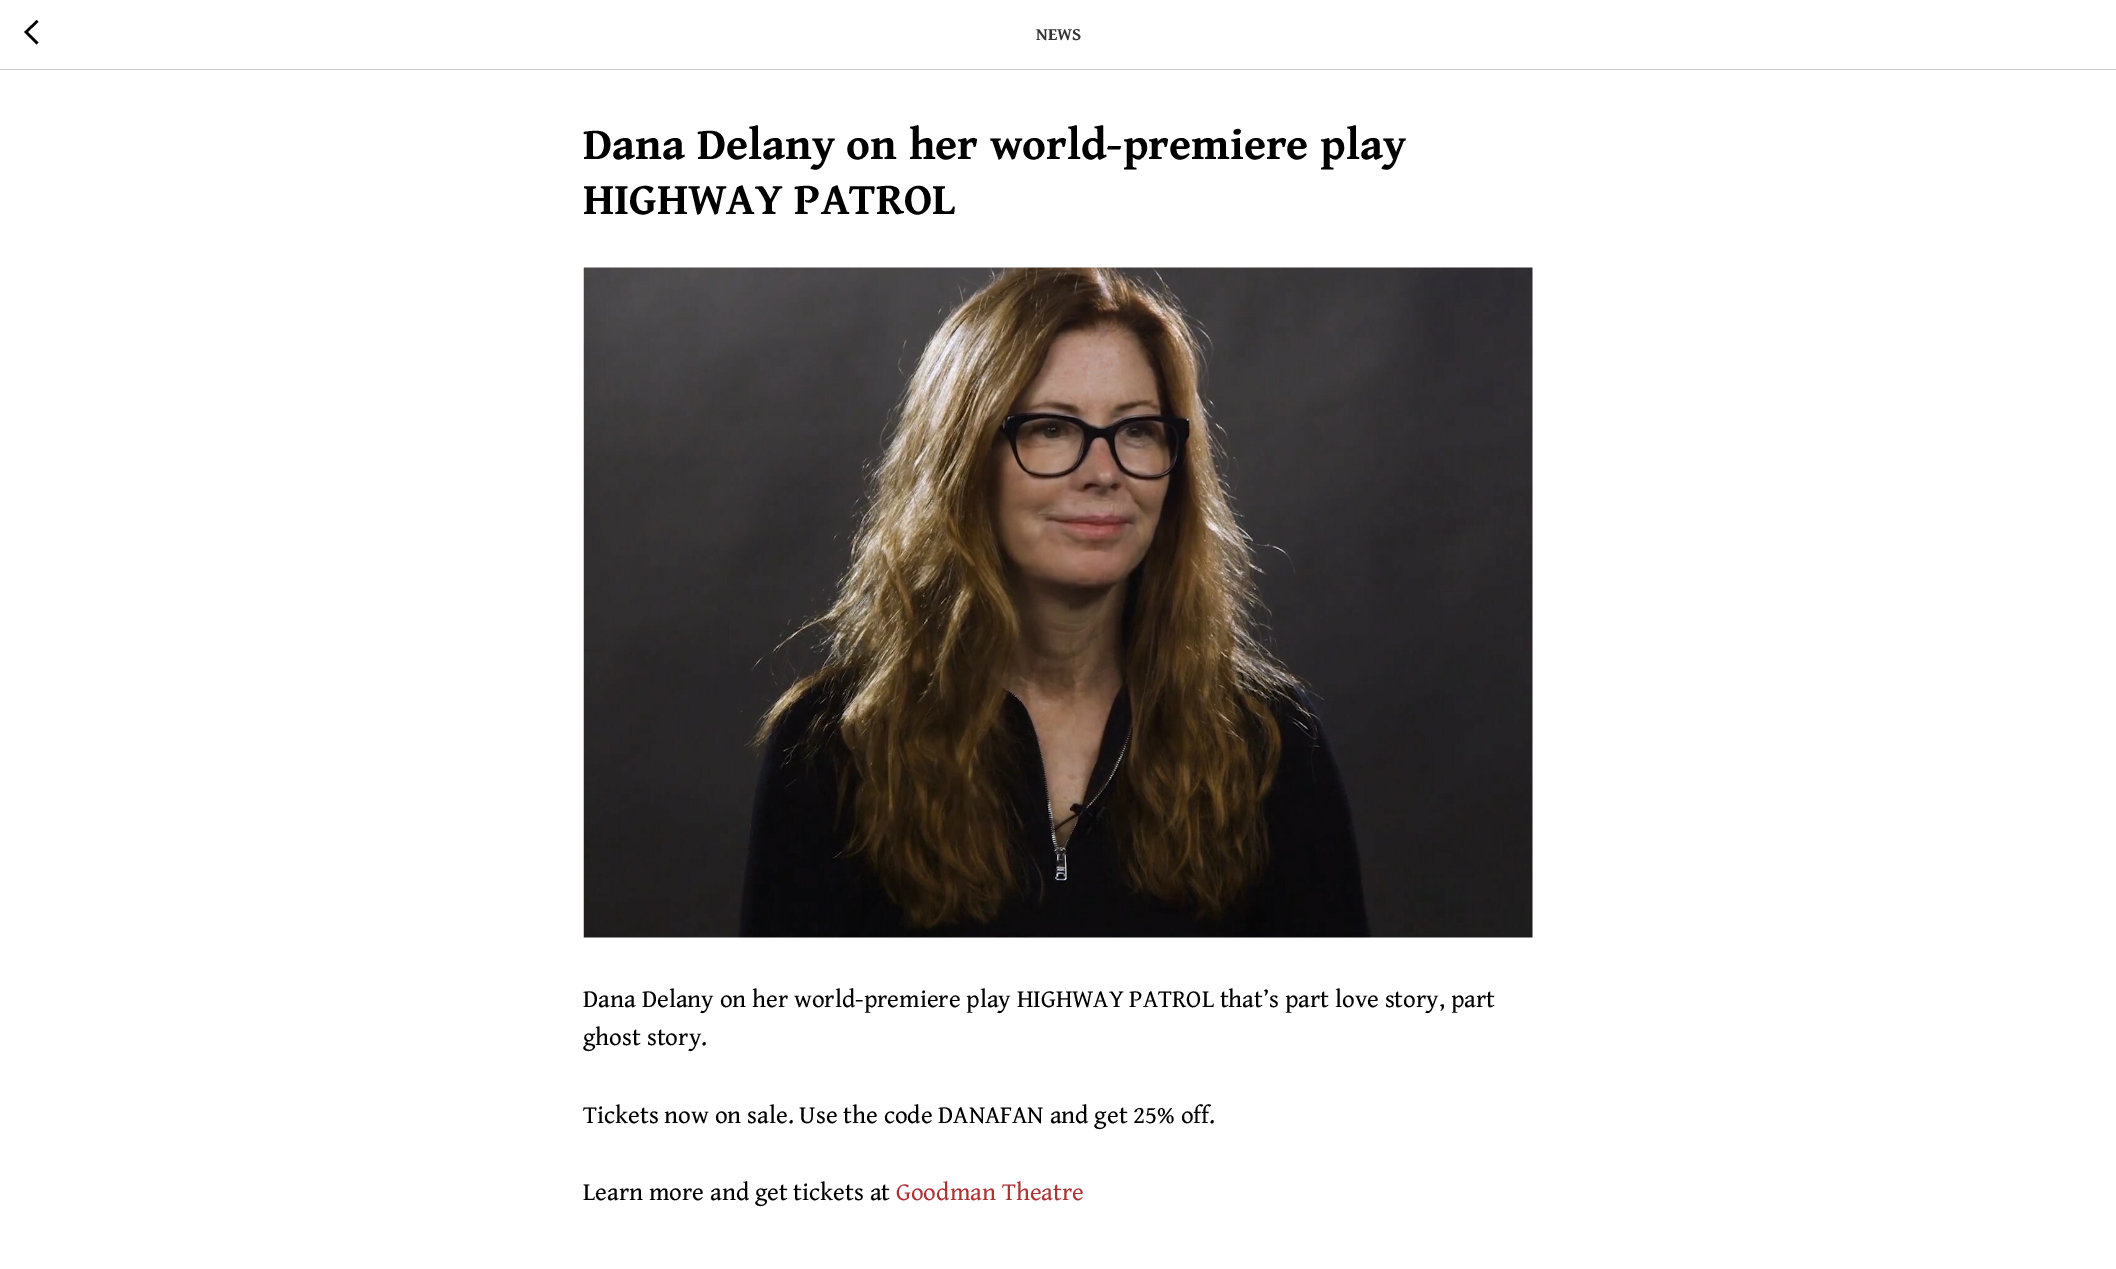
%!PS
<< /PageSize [2116 1269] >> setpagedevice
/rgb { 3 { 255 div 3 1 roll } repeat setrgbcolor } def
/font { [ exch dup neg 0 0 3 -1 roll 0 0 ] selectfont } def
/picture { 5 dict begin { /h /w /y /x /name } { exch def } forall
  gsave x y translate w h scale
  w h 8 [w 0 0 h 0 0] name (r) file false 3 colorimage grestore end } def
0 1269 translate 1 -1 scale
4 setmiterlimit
255 255 255 rgb
0 0 2116 1269 rectfill
204 204 204 rgb
0 69 2116 1 rectfill
0 0 0 rgb
2.5 setlinewidth
37.5 43.5 moveto 26 32 lineto 37.5 21 lineto stroke
(img/1.rgb) 583 267 950 671 picture
/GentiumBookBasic-Bold 17.5 font
51 51 51 rgb
1036 40 moveto (NEWS) show
/GentiumBookBasic-Bold 45 font
0 0 0 rgb
583 159 moveto (Dana Delany on her world-premiere play) show
583 214 moveto (HIGHWAY PATROL) show
/GentiumBookBasic-Regular 25 font
[
  [(Dana Delany on her world-premiere play HIGHWAY PATROL that’s part love story, part) 583 1007]
  [(ghost story.) 583 1045]
  [(Tickets now on sale. Use the code DANAFAN and get 25% off.) 583 1123]
  [(Learn more and get tickets at) 583 1200]
] { aload pop moveto show } forall
173 52 52 rgb
896 1200 moveto (Goodman Theatre) show
showpage
